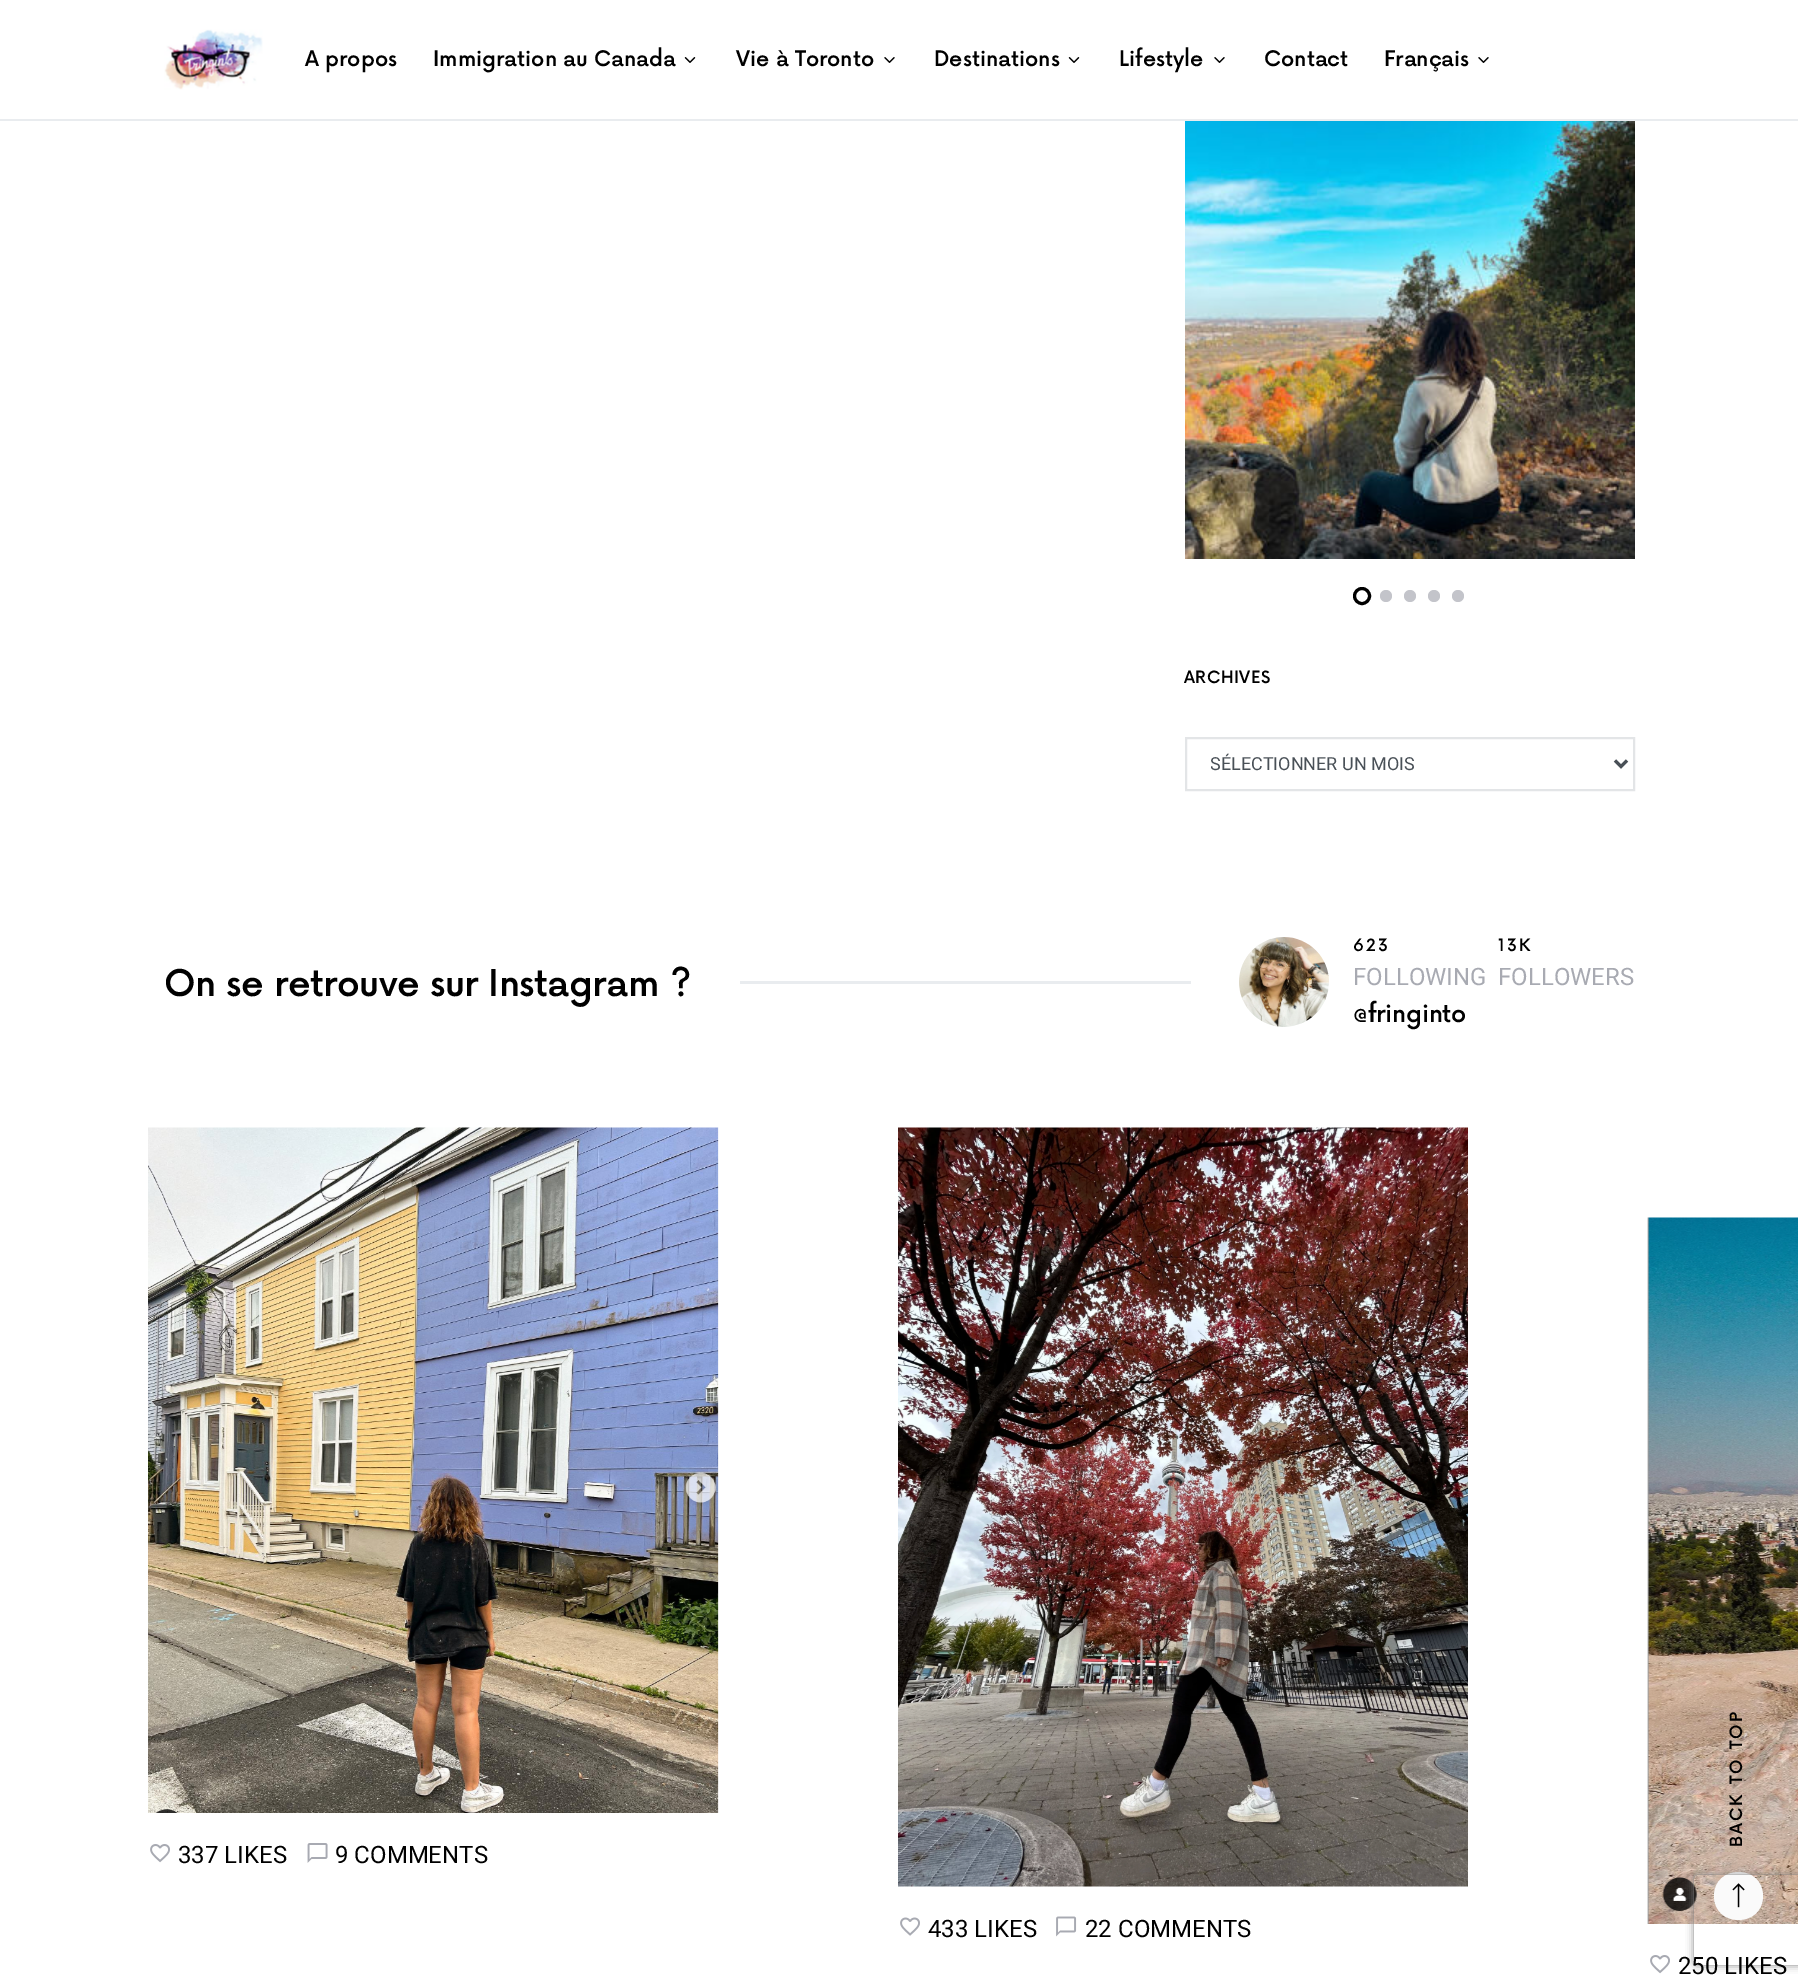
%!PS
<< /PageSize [1798 1985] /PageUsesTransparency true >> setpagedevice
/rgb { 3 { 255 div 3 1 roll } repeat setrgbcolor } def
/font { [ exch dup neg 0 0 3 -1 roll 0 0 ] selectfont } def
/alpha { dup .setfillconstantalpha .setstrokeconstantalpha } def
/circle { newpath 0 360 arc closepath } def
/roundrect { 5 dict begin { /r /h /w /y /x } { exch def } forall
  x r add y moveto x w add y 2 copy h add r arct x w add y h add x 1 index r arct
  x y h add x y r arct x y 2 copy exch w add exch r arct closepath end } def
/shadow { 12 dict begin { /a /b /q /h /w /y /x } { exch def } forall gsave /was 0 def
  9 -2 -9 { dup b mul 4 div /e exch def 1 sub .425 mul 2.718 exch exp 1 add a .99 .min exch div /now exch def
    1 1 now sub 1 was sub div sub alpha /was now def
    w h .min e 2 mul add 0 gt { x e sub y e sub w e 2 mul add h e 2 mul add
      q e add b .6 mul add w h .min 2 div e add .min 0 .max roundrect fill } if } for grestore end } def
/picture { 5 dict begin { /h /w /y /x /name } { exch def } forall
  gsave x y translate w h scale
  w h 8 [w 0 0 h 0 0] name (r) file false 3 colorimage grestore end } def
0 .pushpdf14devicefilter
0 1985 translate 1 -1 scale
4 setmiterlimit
255 255 255 rgb
0 0 1798 1985 rectfill
233 236 239 rgb
0 119 1798 2 rectfill
(img/1.rgb) 164 29 99 61 picture
(img/2.rgb) 684 57 12 6 picture
(img/3.rgb) 884 57 11 6 picture
(img/2.rgb) 1068 57 12 6 picture
(img/3.rgb) 1214 57 11 6 picture
(img/3.rgb) 1478 57 11 6 picture
(img/4.rgb) 1185 121 450 438 picture
0 0 0 rgb
3 setlinewidth
1362 596 7.5 circle stroke
195 196 202 rgb
1386 596 6 circle fill
1410 596 6 circle fill
1434 596 6 circle fill
1458 596 6 circle fill
227 229 231 rgb
2 setlinewidth
1186 738 448 52 rectstroke
73 80 87 rgb
3 setlinewidth
1615 760.5 moveto 1621 766.5 lineto 1627 760.5 lineto stroke
233 236 239 rgb
740 981 451 3 rectfill
(img/5.rgb) 1239 937 90 90 picture
(img/6.rgb) 148 1127 571 686 picture
(img/7.rgb) 150 1844 20 19 picture
(img/8.rgb) 307 1843 21 20 picture
(img/9.rgb) 898 1127 570 760 picture
(img/10.rgb) 900 1917 20 19 picture
(img/11.rgb) 1056 1916 21 21 picture
(img/12.rgb) 1647 1217 151 707 picture
(img/7.rgb) 1650 1955 20 19 picture
250 250 250 rgb
1714 1896 moveto 1714 1864 1763 1864 1763 1896 curveto 1763 1928 1714 1928 1714 1896 curveto closepath fill
(img/13.rgb) 1732 1883 13 25 picture
gsave
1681 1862 moveto 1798 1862 lineto 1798 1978 lineto 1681 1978 lineto closepath 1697 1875 moveto 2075 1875 lineto 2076.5 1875 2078 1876.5 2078 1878 curveto 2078 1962 lineto 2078 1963.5 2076.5 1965 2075 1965 curveto 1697 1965 lineto 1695.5 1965 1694 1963.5 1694 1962 curveto 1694 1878 lineto 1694 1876.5 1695.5 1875 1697 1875 curveto closepath eoclip newpath
128 128 128 rgb
1694 1875 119 90 3 4 1 shadow
grestore
/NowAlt-Medium 21 font
0 0 0 rgb
[
  [(A propos) 305 66]
  [(Immigration au Canada) 433 66]
  [(Vie à Toronto) 736 66]
  [(Destinations) 934 66]
  [(Lifestyle) 1119 66]
  [(Contact) 1264 66]
  [(Français) 1384 66]
] { aload pop moveto show } forall
/NowAlt-Medium 16.5 font
1184 683 moveto 0.5 0 (ARCHIVES) ashow
gsave
1211 752 381 24 rectclip
/Roboto-Regular 18 font
73 80 87 rgb
1210 770 moveto (SÉLECTIONNER UN MOIS) show
grestore
/NowAlt-Medium 36 font
164 996 moveto -0.45 0 (On se retrouve sur Instagram ?) ashow
/NowAlt-Medium 16.5 font
1353 951 moveto 2 0 (623) ashow
/Roboto-Regular 24 font
168 170 178 rgb
1353 985 moveto (FOLLOWING) show
/NowAlt-Medium 16.5 font
0 0 0 rgb
1498 951 moveto 2 0 (13K) ashow
/Roboto-Regular 24 font
168 170 178 rgb
1498 985 moveto (FOLLOWERS) show
/NowAlt-Medium 24 font
0 0 0 rgb
1353 1022 moveto -0.25 0 (@fringinto) ashow
/Roboto-Regular 24 font
[
  [(337 LIKES) 178 1863]
  [(9 COMMENTS) 335 1863]
  [(433 LIKES) 928 1937]
  [(22 COMMENTS) 1085 1937]
  [(250 LIKES) 1678 1974]
] { aload pop moveto show } forall
/NowAlt-Medium 16.5 font
gsave 1742 1847 translate -90 rotate 0 0 moveto 1 0 32 2 0 (BACK TO TOP) awidthshow grestore
.poppdf14devicefilter showpage
